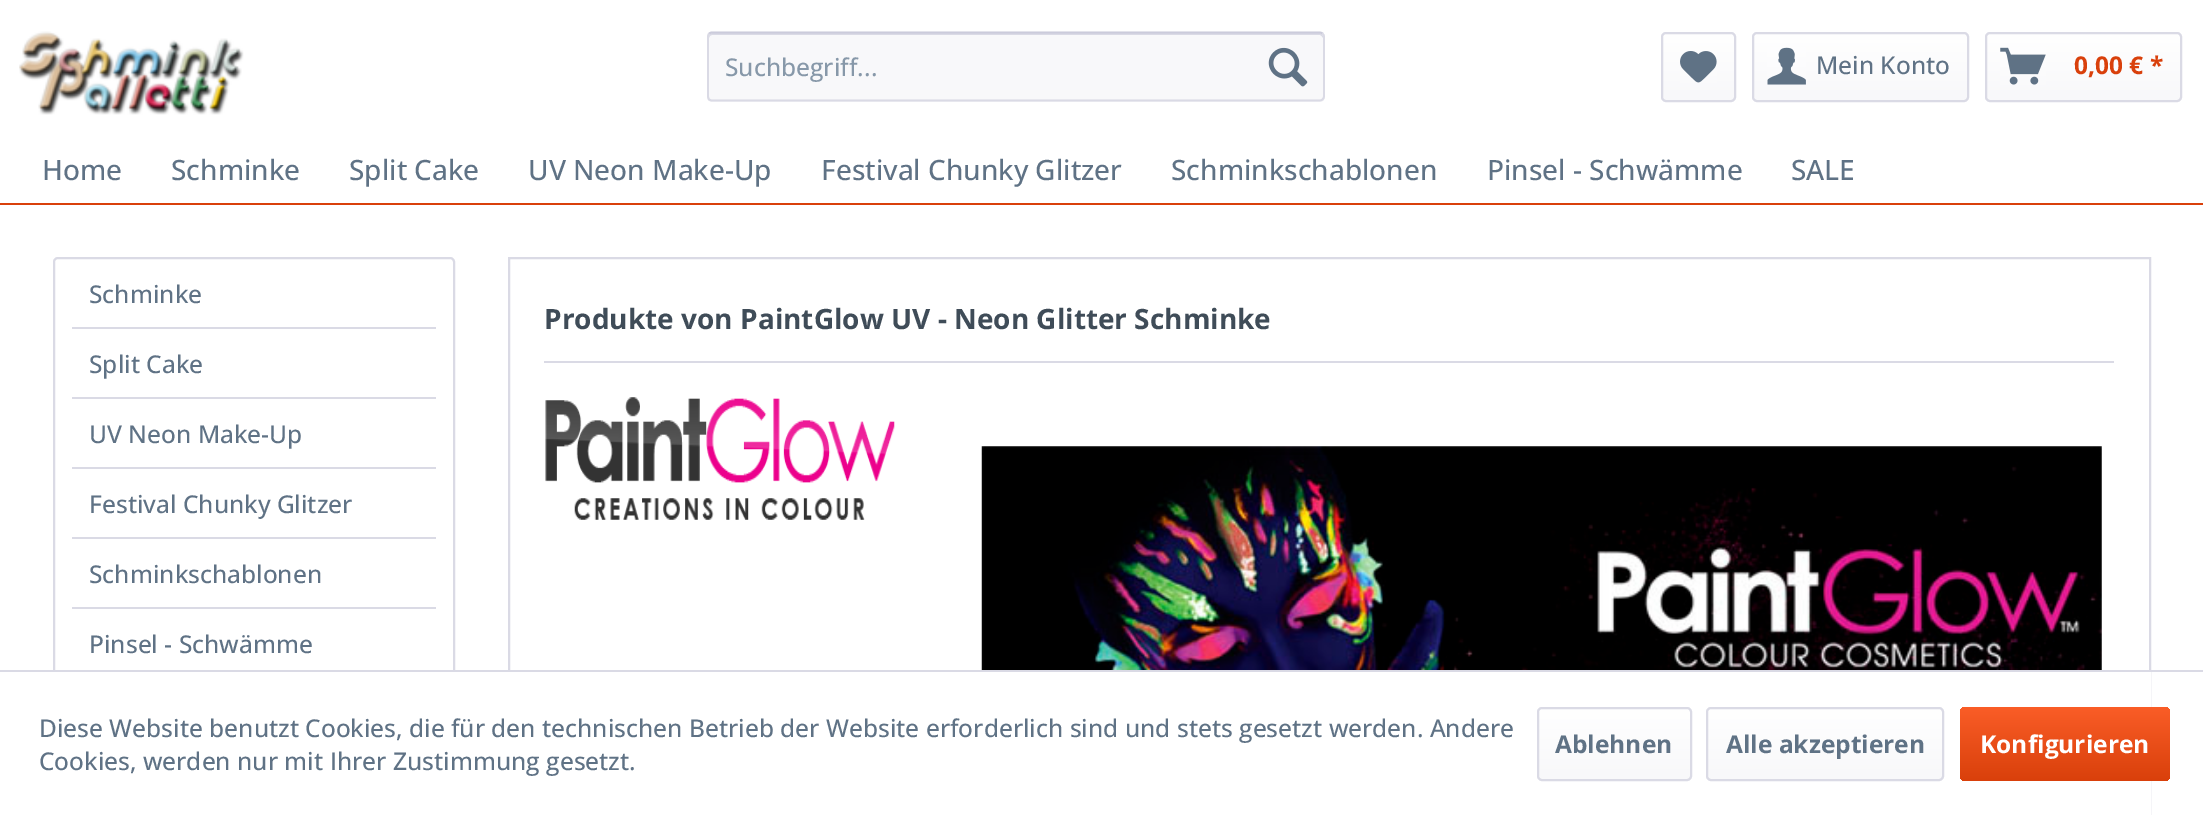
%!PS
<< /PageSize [2203 815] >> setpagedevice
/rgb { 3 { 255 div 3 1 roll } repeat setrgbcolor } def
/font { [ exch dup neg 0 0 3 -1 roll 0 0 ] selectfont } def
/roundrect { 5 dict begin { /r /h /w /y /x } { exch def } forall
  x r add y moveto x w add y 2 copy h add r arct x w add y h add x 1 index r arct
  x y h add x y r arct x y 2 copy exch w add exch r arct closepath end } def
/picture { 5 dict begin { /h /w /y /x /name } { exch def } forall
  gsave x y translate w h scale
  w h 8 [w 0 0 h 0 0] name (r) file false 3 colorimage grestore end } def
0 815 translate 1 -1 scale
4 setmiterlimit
255 255 255 rgb
0 0 2203 815 rectfill
(img/1.rgb) 19 31 225 84 picture
248 248 250 rgb
707 32 618 70 5 roundrect fill
218 218 229 rgb
712 35 moveto 1320 35 lineto 1321 35 1323 37 1323 38 curveto 1323 37 lineto 1323 35 1321 33 1319 33 curveto 713 33 lineto 711 33 709 35 709 37 curveto 709 38 lineto 709 37 710 35 712 35 curveto closepath fill
203 203 219 rgb
1.8 setlinewidth
709 33.5 moveto 710 33 711 32.5 712 32.5 curveto 1319.5 32.5 lineto 1320.5 32.5 1322 33 1322.5 33.5 curveto stroke
218 218 229 rgb
1322.5 33.5 moveto 1323.5 34.5 1324 35.5 1324 37 curveto 1324 96 lineto 1324 97.5 1323.5 98.5 1322.5 99.5 curveto 1322 100 1320.5 100.5 1319.5 100.5 curveto 712 100.5 lineto 711 100.5 710 100 709 99.5 curveto 708.5 98.5 708 97.5 708 96 curveto 708 37 lineto 708 35.5 708.5 34.5 709 33.5 curveto stroke
(img/2.rgb) 1268 47 40 40 picture
gsave 1663 33 71 67 4 roundrect clip newpath
<< /ShadingType 2 /ColorSpace /DeviceRGB /Coords [1698 33 1698 100] /Extend [true true] /Function << /FunctionType 2 /Domain [0 1] /C0 [1 1 1] /C1 [0.973 0.973 0.98] /N 1 >> >> shfill grestore
2 setlinewidth
1662 33 73 68 4 roundrect stroke
(img/3.rgb) 1680 51 37 32 picture
gsave 1754 33 213 67 4 roundrect clip newpath
<< /ShadingType 2 /ColorSpace /DeviceRGB /Coords [1860 33 1860 100] /Extend [true true] /Function << /FunctionType 2 /Domain [0 1] /C0 [1 1 1] /C1 [0.973 0.973 0.98] /N 1 >> >> shfill grestore
1753 33 215 68 4 roundrect stroke
(img/4.rgb) 1767 47 39 38 picture
gsave 1986 33 195 67 4 roundrect clip newpath
<< /ShadingType 2 /ColorSpace /DeviceRGB /Coords [2083 33 2083 100] /Extend [true true] /Function << /FunctionType 2 /Domain [0 1] /C0 [1 1 1] /C1 [0.973 0.973 0.98] /N 1 >> >> shfill grestore
1986 33 195 68 4 roundrect stroke
(img/5.rgb) 2000 47 46 38 picture
217 64 11 rgb
0 203 2203 2 rectfill
218 218 229 rgb
54 258 400 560 4 roundrect stroke
[
  [72 327 364 2 218 218 229]
  [72 397 364 2 218 218 229]
  [72 467 364 2 218 218 229]
  [72 537 364 2 218 218 229]
  [72 607 364 2 218 218 229]
] { aload pop rgb rectfill } forall
509 258 1641 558 rectstroke
544 361 1570 2 rectfill
(img/6.rgb) 545 397 350 123 picture
(img/7.rgb) 981 446 1121 224 picture
255 255 255 rgb
53 672 2098 143 rectfill
218 218 229 rgb
0 670 2203 2 rectfill
gsave 1538 709 153 70 4 roundrect clip newpath
<< /ShadingType 2 /ColorSpace /DeviceRGB /Coords [1614 709 1614 779] /Extend [true true] /Function << /FunctionType 2 /Domain [0 1] /C0 [1 1 1] /C1 [0.973 0.973 0.98] /N 1 >> >> shfill grestore
1538 708 153 72 4 roundrect stroke
gsave 1708 709 235 70 4 roundrect clip newpath
<< /ShadingType 2 /ColorSpace /DeviceRGB /Coords [1825 709 1825 779] /Extend [true true] /Function << /FunctionType 2 /Domain [0 1] /C0 [1 1 1] /C1 [0.973 0.973 0.98] /N 1 >> >> shfill grestore
1707 708 236 72 4 roundrect stroke
gsave 1960 707 210 74 5 roundrect clip newpath
<< /ShadingType 2 /ColorSpace /DeviceRGB /Coords [2065 707 2065 781] /Extend [true true] /Function << /FunctionType 2 /Domain [0 1] /C0 [0.98 0.365 0.153] /C1 [0.851 0.251 0.043] /N 1 >> >> shfill grestore
/OpenSans-Medium 24.5 font
135 152 169 rgb
725 76 moveto (Suchbegriff...) show
95 114 133 rgb
1816 74 moveto (Mein Konto) show
/OpenSans-Bold 24.5 font
217 64 11 rgb
2074 74 moveto (0,00 € *) show
/OpenSans-Medium 28 font
95 114 133 rgb
[
  [(Home) 42 180]
  [(Schminke) 171 180]
  [(Split Cake) 349 180]
  [(UV Neon Make-Up) 528 180]
  [(Festival Chunky Glitzer) 821 180]
  [(Schminkschablonen) 1171 180]
  [(Pinsel - Schwämme) 1487 180]
  [(SALE) 1791 180]
] { aload pop moveto show } forall
/OpenSans-Medium 24.5 font
[
  [(Schminke) 89 303]
  [(Split Cake) 89 373]
  [(UV Neon Make-Up) 89 443]
  [(Festival Chunky Glitzer) 89 513]
  [(Schminkschablonen) 89 583]
  [(Pinsel - Schwämme) 89 653]
] { aload pop moveto show } forall
/OpenSans-Bold 28 font
63 76 88 rgb
544 329 moveto (Produkte von PaintGlow UV - Neon Glitter Schminke) show
/OpenSans-Medium 24.5 font
95 114 133 rgb
39 737 moveto (Diese Website benutzt Cookies, die für den technischen Betrieb der Website erforderlich sind und stets gesetzt werden. Andere) show
39 770 moveto (Cookies, werden nur mit Ihrer Zustimmung gesetzt.) show
/OpenSans-Bold 24.5 font
1555 753 moveto (Ablehnen) show
1726 753 moveto (Alle akzeptieren) show
255 255 255 rgb
1980 753 moveto (Konfigurieren) show
showpage
